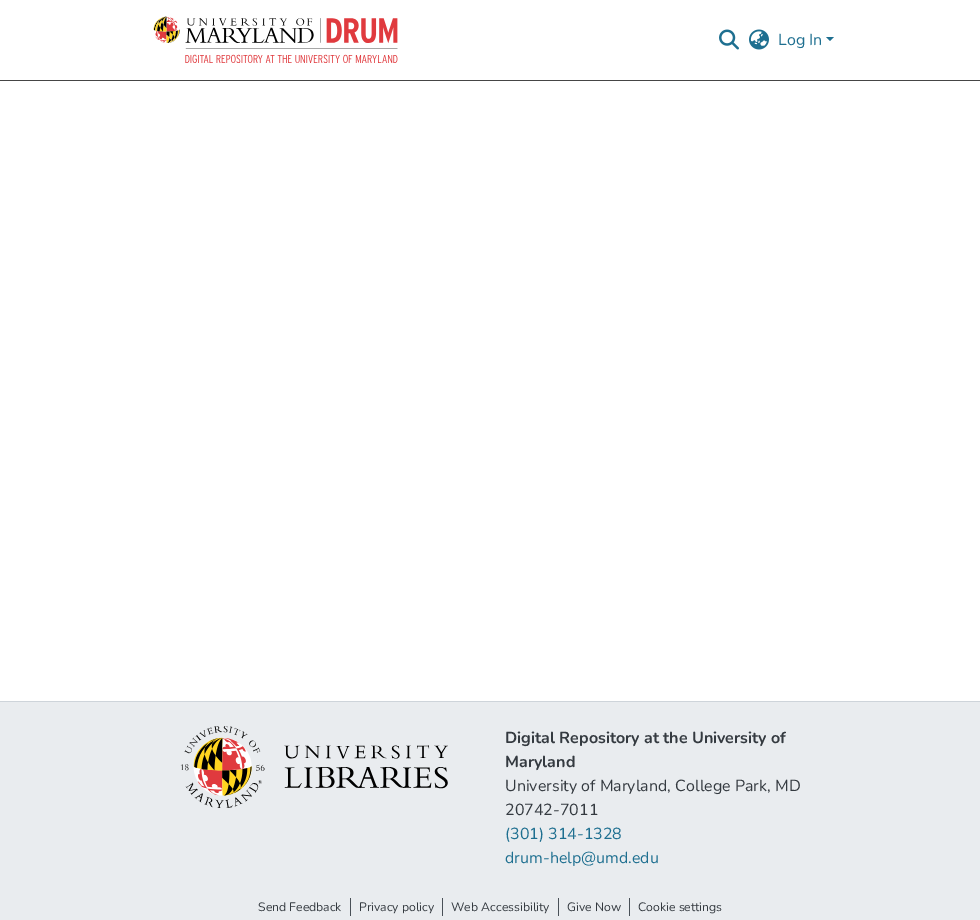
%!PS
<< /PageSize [980 920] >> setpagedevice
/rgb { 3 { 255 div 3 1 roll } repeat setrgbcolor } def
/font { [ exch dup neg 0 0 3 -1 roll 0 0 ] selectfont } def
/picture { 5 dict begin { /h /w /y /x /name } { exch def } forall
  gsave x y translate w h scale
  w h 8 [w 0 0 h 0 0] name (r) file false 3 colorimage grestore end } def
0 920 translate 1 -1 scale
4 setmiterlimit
255 255 255 rgb
0 0 980 920 rectfill
69 69 69 rgb
0 80 980 1 rectfill
(img/1.rgb) 153 16 245 47 picture
(img/2.rgb) 719 29 20 21 picture
(img/3.rgb) 749 29 20 21 picture
30 111 144 rgb
826 37 moveto 834 37 lineto 830 41 lineto closepath fill
233 236 239 rgb
0 702 980 218 rectfill
206 212 218 rgb
0 701 980 1 rectfill
(img/4.rgb) 180 726 268 82 picture
[
  [350 898 1 18 73 80 87]
  [442 898 1 18 73 80 87]
  [558 898 1 18 73 80 87]
  [629 898 1 18 73 80 87]
] { aload pop rgb rectfill } forall
/Nunito-Regular 16 font
30 111 144 rgb
778 45 moveto (Log In) show
/Nunito-Bold 16 font
52 58 64 rgb
505 743 moveto (Digital Repository at the University of) show
505 767 moveto (Maryland) show
/Nunito-Regular 16 font
505 791 moveto (University of Maryland, College Park, MD) show
505 815 moveto (20742-7011) show
30 111 144 rgb
505 839 moveto (\(301\) 314-1328) show
505 863 moveto (drum-help@umd.edu) show
/Nunito-Regular 12.25 font
52 58 64 rgb
[
  [(Send Feedback) 258 911]
  [(Privacy policy) 359 911]
  [(Web Accessibility) 451 911]
  [(Give Now) 567 911]
  [(Cookie settings) 638 911]
] { aload pop moveto show } forall
showpage
